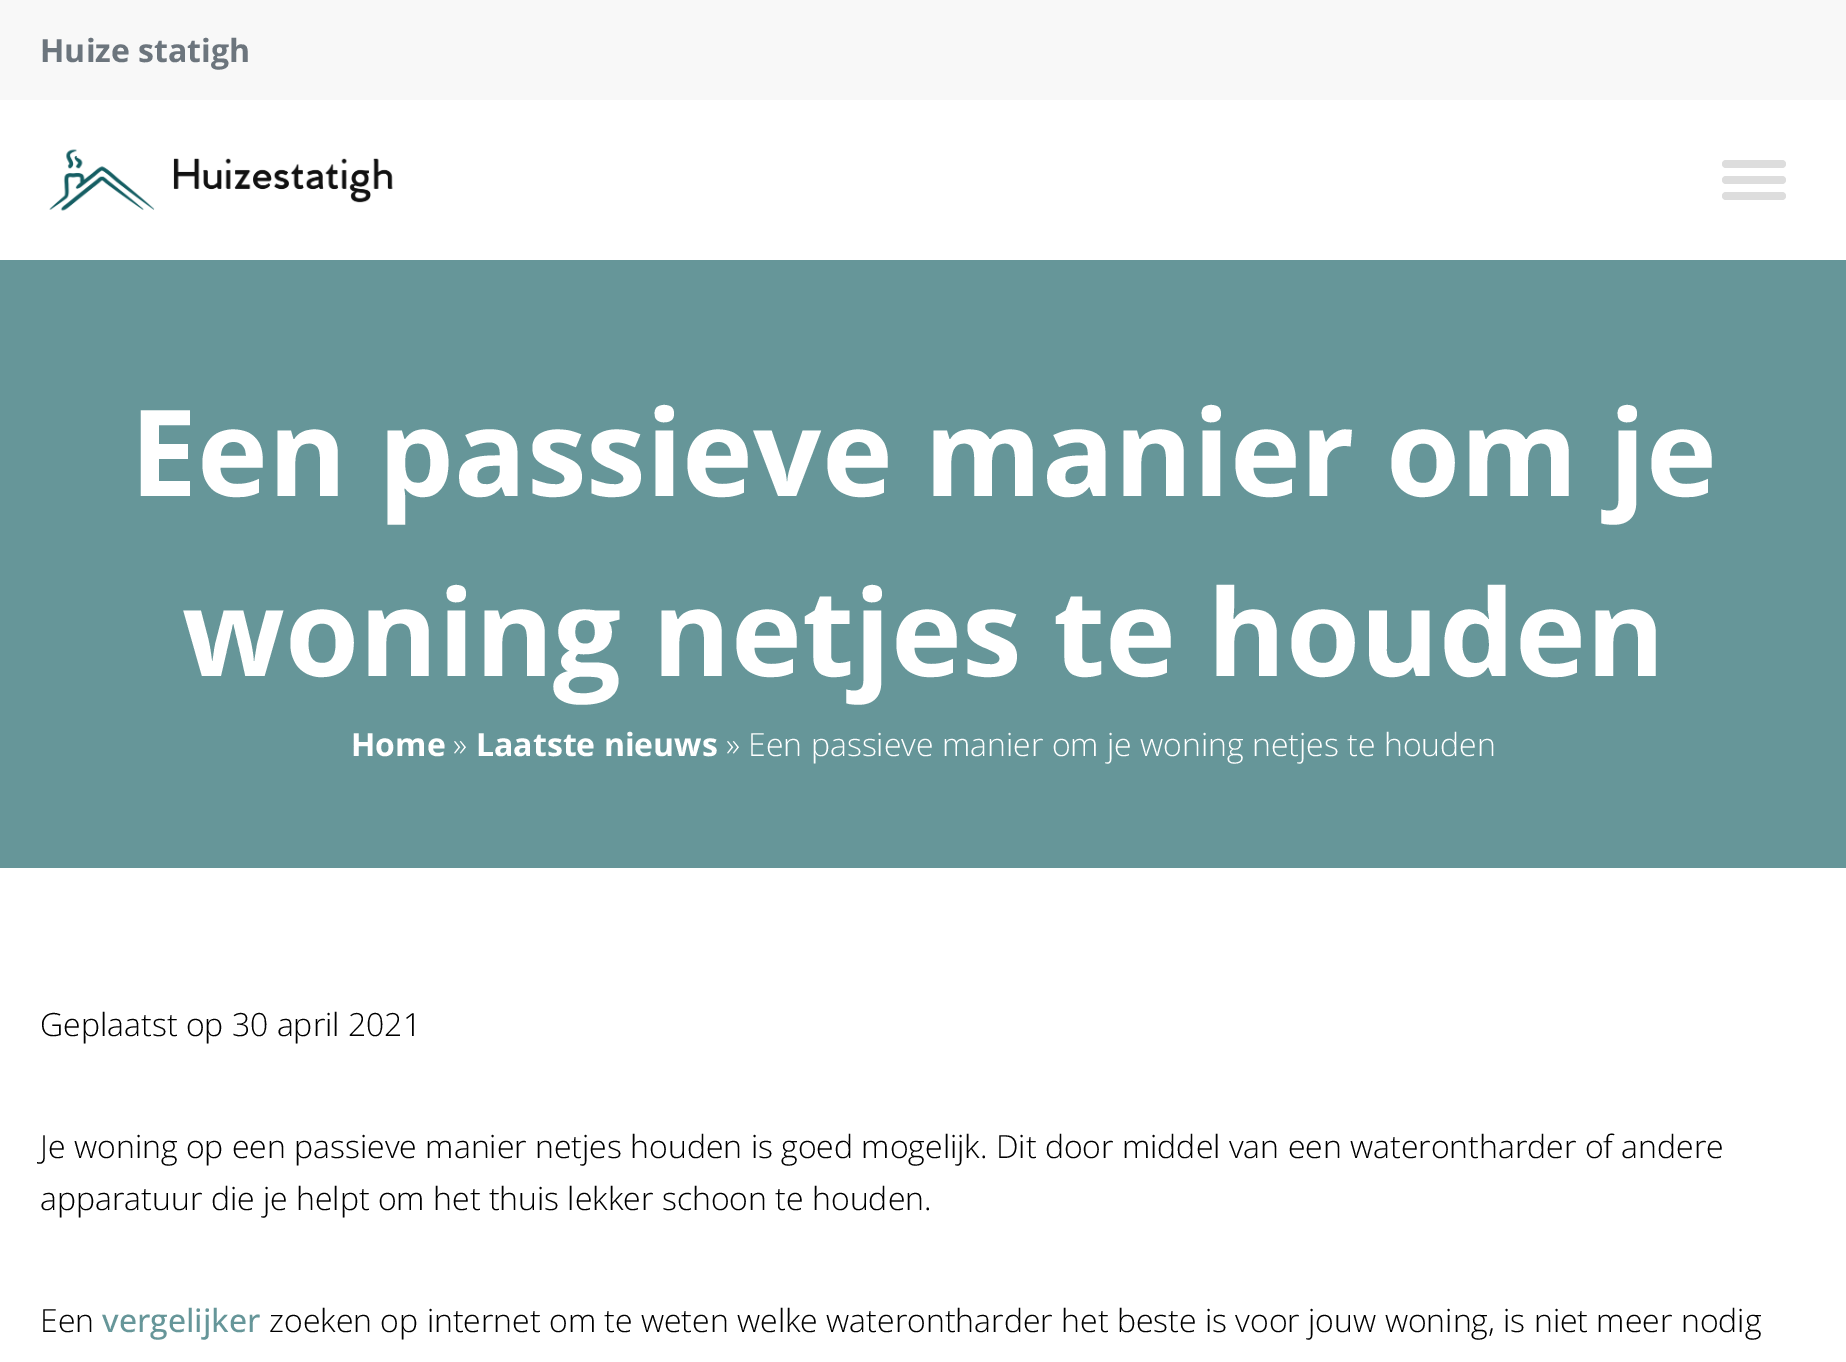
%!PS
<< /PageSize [1846 1362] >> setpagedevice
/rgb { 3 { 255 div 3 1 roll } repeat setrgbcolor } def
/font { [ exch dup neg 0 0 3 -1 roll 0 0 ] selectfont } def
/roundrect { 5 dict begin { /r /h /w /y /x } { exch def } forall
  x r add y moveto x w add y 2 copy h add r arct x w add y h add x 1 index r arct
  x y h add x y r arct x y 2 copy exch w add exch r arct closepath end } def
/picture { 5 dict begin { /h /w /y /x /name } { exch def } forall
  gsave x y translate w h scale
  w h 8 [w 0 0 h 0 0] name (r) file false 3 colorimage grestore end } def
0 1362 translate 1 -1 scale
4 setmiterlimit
255 255 255 rgb
0 0 1846 1362 rectfill
248 248 248 rgb
0 0 1846 100 rectfill
(img/1.rgb) 49 149 344 62 picture
221 221 221 rgb
1722 160 64 8 4 roundrect fill
1722 176 64 8 4 roundrect fill
1722 192 64 8 4 roundrect fill
102 150 153 rgb
0 260 1846 608 rectfill
/OpenSans-Bold 32 font
108 117 125 rgb
40 62 moveto (Huize statigh) show
/OpenSans-Bold 120 font
255 255 255 rgb
130 496 moveto (Een passieve manier om je) show
182 676 moveto (woning netjes te houden) show
/OpenSans-Bold 32 font
351 756 moveto (Home) show
/OpenSans-Light 32 font
453 756 moveto (») show
/OpenSans-Bold 32 font
476 756 moveto (Laatste nieuws) show
/OpenSans-Light 32 font
726 756 moveto (» Een passieve manier om je woning netjes te houden) show
0 0 0 rgb
[
  [(Geplaatst op 30 april 2021) 40 1036]
  [(Je woning op een passieve manier netjes houden is goed mogelijk. Dit door middel van een waterontharder of andere) 40 1158]
  [(apparatuur die je helpt om het thuis lekker schoon te houden.) 40 1210]
  [(Een) 40 1332]
] { aload pop moveto show } forall
/OpenSans-Medium 32 font
102 150 153 rgb
102 1332 moveto (vergelijker) show
/OpenSans-Light 32 font
0 0 0 rgb
269 1332 moveto (zoeken op internet om te weten welke waterontharder het beste is voor jouw woning, is niet meer nodig) show
showpage
